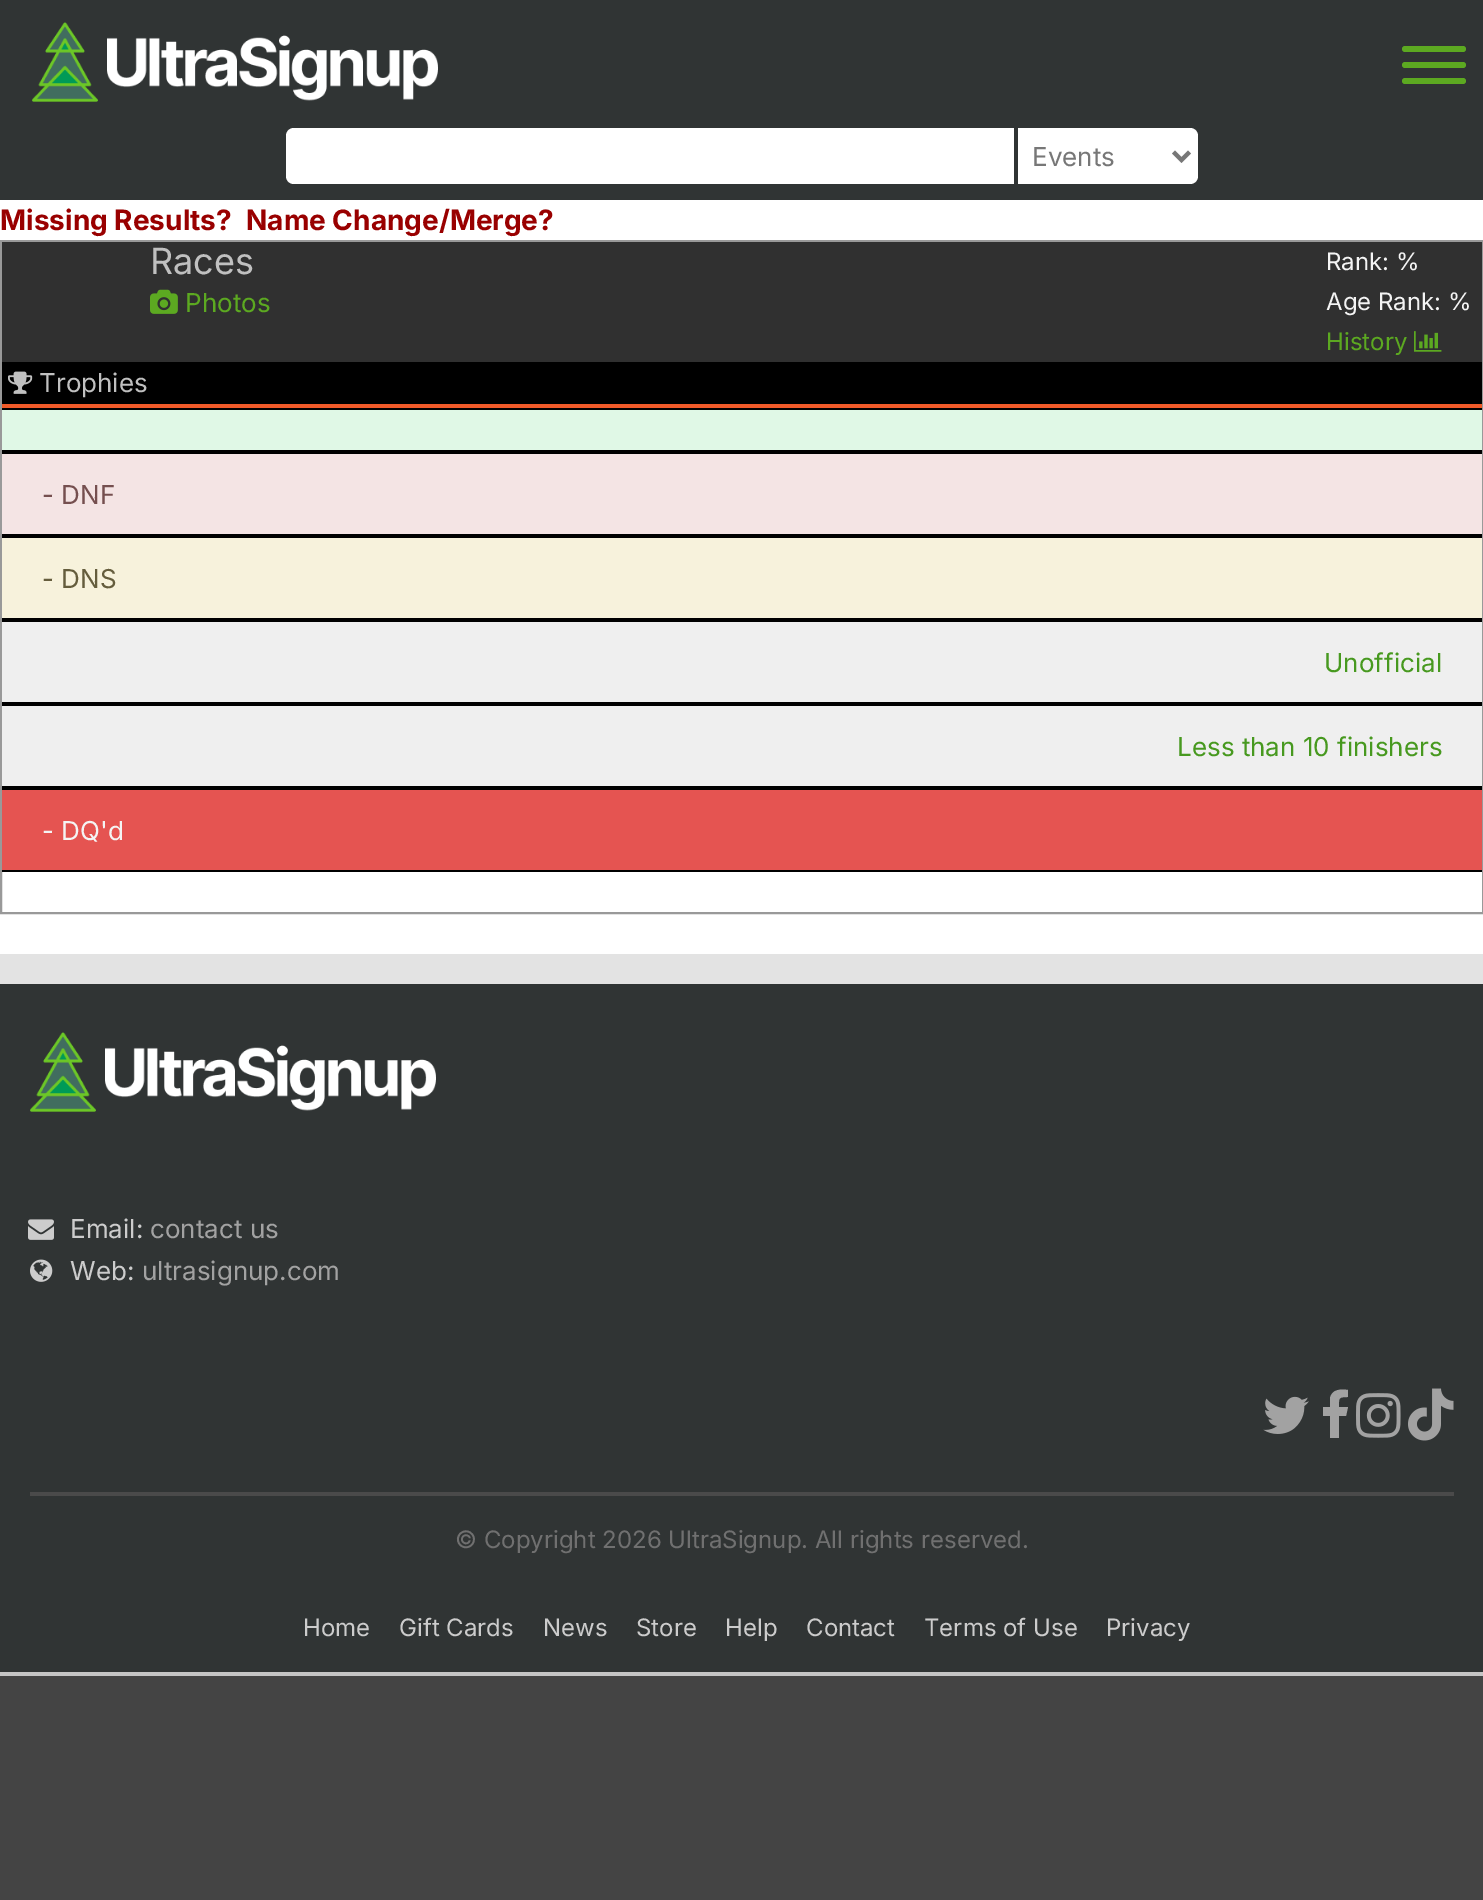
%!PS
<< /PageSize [1483 1900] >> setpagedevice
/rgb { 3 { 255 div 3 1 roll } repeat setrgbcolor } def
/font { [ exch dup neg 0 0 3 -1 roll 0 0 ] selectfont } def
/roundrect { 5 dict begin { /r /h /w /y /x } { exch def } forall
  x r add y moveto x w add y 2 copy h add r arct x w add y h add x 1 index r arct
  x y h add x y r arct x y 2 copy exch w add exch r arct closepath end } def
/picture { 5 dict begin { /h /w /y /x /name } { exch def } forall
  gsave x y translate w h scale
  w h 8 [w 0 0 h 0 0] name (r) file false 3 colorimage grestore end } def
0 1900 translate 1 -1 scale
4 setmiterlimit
68 68 68 rgb
0 0 1483 1900 rectfill
255 255 255 rgb
0 200 1483 754 rectfill
48 52 52 rgb
0 0 1483 200 rectfill
(img/1.rgb) 32 22 406 80 picture
92 169 33 rgb
1402 62 64 6 3 roundrect fill
1402 46 64 6 3 roundrect fill
1402 78 64 6 3 roundrect fill
255 255 255 rgb
294 128 moveto 1014 128 lineto 1014 184 lineto 294 184 lineto 289.5 184 286 180.5 286 176 curveto 286 136 lineto 286 131.5 289.5 128 294 128 curveto closepath fill
1018 128 moveto 1190 128 lineto 1194.5 128 1198 131.5 1198 136 curveto 1198 176 lineto 1198 180.5 1194.5 184 1190 184 curveto 1018 184 lineto closepath fill
119 119 119 rgb
4 setlinewidth
1173.5 152 moveto 1181.5 160 lineto 1189.5 152 lineto stroke
153 153 153 rgb
2 setlinewidth
1 241 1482 672 rectstroke
48 48 48 rgb
2 242 1480 120 rectfill
(img/2.rgb) 150 289 28 25 picture
(img/3.rgb) 1414 331 28 21 picture
0 0 0 rgb
2 362 1480 42 rectfill
241 90 41 rgb
2 404 1480 4 rectfill
(img/4.rgb) 8 371 25 23 picture
[
  [2 410 1480 40 224 248 230]
  [2 408 1480 2 0 0 0]
  [2 450 1480 4 0 0 0]
  [2 454 1480 80 244 228 228]
  [2 534 1480 4 0 0 0]
  [2 538 1480 80 247 242 220]
  [2 618 1480 4 0 0 0]
  [2 622 1480 80 239 239 239]
  [2 702 1480 4 0 0 0]
  [2 706 1480 80 239 239 239]
  [2 786 1480 4 0 0 0]
  [2 790 1480 80 229 84 81]
  [2 870 1480 2 0 0 0]
  [0 954 1483 30 227 227 227]
  [0 984 1483 688 48 52 52]
] { aload pop rgb rectfill } forall
(img/5.rgb) 30 1032 406 80 picture
(img/6.rgb) 28 1219 26 21 picture
(img/7.rgb) 30 1259 23 23 picture
(img/8.rgb) 1263 1396 46 38 picture
162 162 162 rgb
1348 1390 moveto 1348 1397 lineto 1338 1397 1339 1398 1339 1407 curveto 1348 1407 lineto 1346 1416 lineto 1339 1416 lineto 1339 1438 lineto 1330 1438 lineto 1330 1416 lineto 1323 1416 lineto 1323 1407 lineto 1330 1407 lineto 1330 1398 lineto 1332 1389 1341 1389 1348 1390 curveto closepath fill
(img/9.rgb) 1356 1393 45 45 picture
(img/10.rgb) 1408 1388 46 53 picture
74 74 74 rgb
30 1492 1424 4 rectfill
197 197 197 rgb
0 1672 1483 4 rectfill
/Inter-Regular 26 font
119 119 119 rgb
1032 166 moveto (Events) show
/Inter-Bold 28 font
153 0 0 rgb
0 230 moveto (Missing Results?) show
246 230 moveto (Name Change/Merge?) show
/Inter-Regular 36 font
192 192 192 rgb
150 274 moveto (Races) show
/Inter-Regular 26 font
92 169 33 rgb
185 312 moveto (Photos) show
/Inter-Regular 24 font
244 244 244 rgb
1326 270 moveto (Rank: %) show
1326 310 moveto (Age Rank: %) show
92 169 33 rgb
1326 350 moveto (History) show
/Inter-Regular 26 font
192 192 192 rgb
39 392 moveto (Trophies) show
117 79 79 rgb
42 504 moveto (- DNF) show
101 93 61 rgb
42 588 moveto (- DNS) show
71 153 31 rgb
1324 672 moveto (Unofficial) show
1177 756 moveto (Less than 10 finishers) show
244 244 244 rgb
42 840 moveto (- DQ'd) show
204 204 204 rgb
70 1238 moveto (Email:) show
162 162 162 rgb
150 1238 moveto (contact us) show
204 204 204 rgb
70 1280 moveto (Web:) show
162 162 162 rgb
142 1280 moveto (ultrasignup.com) show
/Inter-Regular 24 font
112 112 112 rgb
455 1548 moveto (© Copyright 2026 UltraSignup. All rights reserved.) show
204 204 204 rgb
[
  [(Home) 303 1636]
  [(Gift Cards) 399 1636]
  [(News) 543 1636]
  [(Store) 636 1636]
  [(Help) 725 1636]
  [(Contact) 806 1636]
  [(Terms of Use) 924 1636]
  [(Privacy) 1106 1636]
] { aload pop moveto show } forall
showpage
